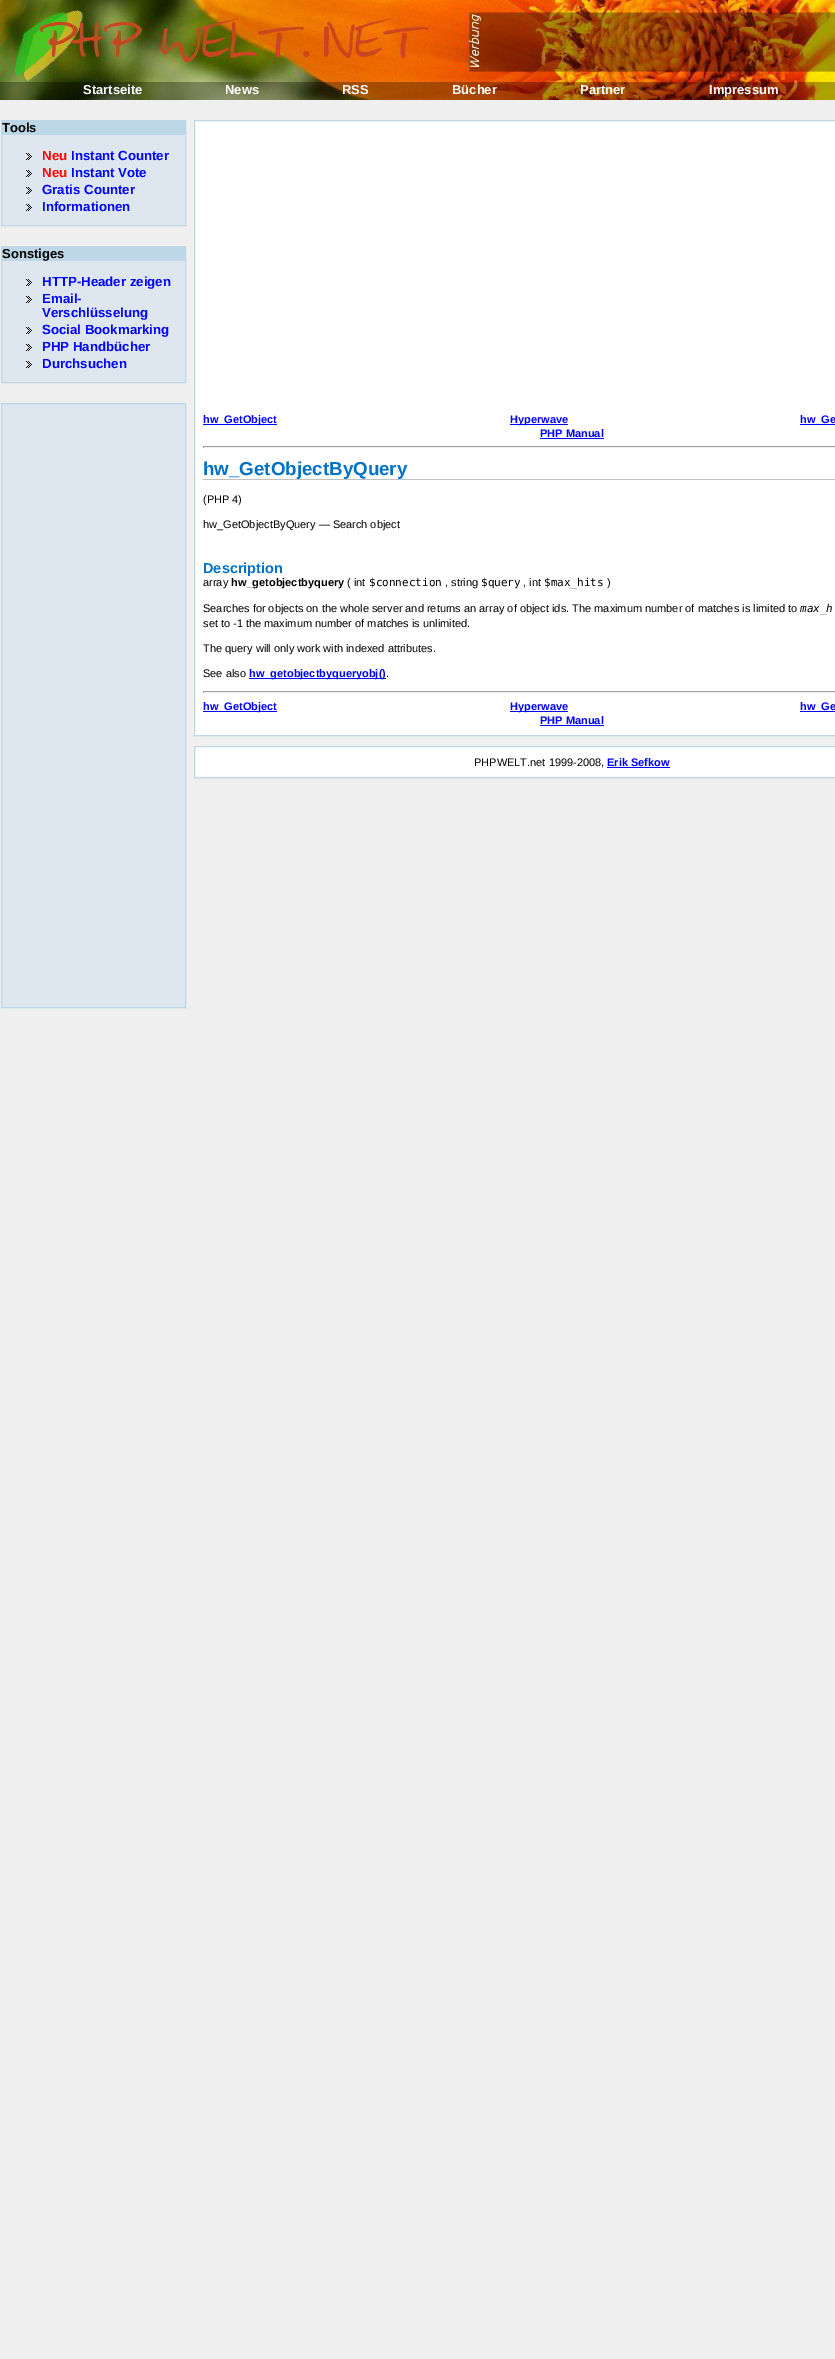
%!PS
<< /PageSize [835 2359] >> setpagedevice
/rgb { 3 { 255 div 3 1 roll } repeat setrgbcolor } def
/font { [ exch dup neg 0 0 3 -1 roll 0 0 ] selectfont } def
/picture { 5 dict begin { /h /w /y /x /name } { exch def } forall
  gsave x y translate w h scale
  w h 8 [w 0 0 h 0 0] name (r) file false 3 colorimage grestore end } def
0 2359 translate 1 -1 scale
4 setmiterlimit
239 239 239 rgb
0 0 835 2359 rectfill
(img/1.rgb) 0 0 835 100 picture
222 231 239 rgb
2 135 183 90 rectfill
189 215 231 rgb
1.5 120.5 184 105 rectstroke
2 121 183 14 rectfill
(img/2.rgb) 26 153 6 7 picture
(img/2.rgb) 26 170 6 7 picture
(img/2.rgb) 26 187 6 7 picture
(img/2.rgb) 26 204 6 7 picture
222 231 239 rgb
2 261 183 121 rectfill
189 215 231 rgb
1.5 246.5 184 136 rectstroke
2 247 183 14 rectfill
(img/2.rgb) 26 279 6 7 picture
(img/2.rgb) 26 296 6 7 picture
(img/2.rgb) 26 327 6 7 picture
(img/2.rgb) 26 344 6 7 picture
(img/2.rgb) 26 361 6 7 picture
222 231 239 rgb
1.5 403.5 moveto 185.5 403.5 lineto 185.5 1007.5 lineto 1.5 1007.5 lineto closepath gsave fill grestore
189 215 231 rgb
stroke
255 255 255 rgb
194.5 120.5 moveto 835.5 120.5 lineto 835.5 735.5 lineto 194.5 735.5 lineto closepath gsave fill grestore
189 215 231 rgb
stroke
[
  [203 424 74 1 0 0 255]
  [510 424 58 1 0 0 255]
  [800 424 35 1 0 0 255]
  [540 438 64 1 0 0 255]
  [203 446 632 1 159 159 159]
  [203 447 632 1 238 238 238]
  [203 446 1 2 159 159 159]
  [203 479 632 1 192 192 192]
  [249 678 137 1 0 0 255]
  [203 691 632 1 159 159 159]
  [203 692 632 1 238 238 238]
  [203 691 1 2 159 159 159]
  [203 711 74 1 0 0 255]
  [510 711 58 1 0 0 255]
  [800 711 35 1 0 0 255]
  [540 725 64 1 0 0 255]
] { aload pop rgb rectfill } forall
255 255 255 rgb
194.5 746.5 moveto 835.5 746.5 lineto 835.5 777.5 lineto 194.5 777.5 lineto closepath gsave fill grestore
189 215 231 rgb
stroke
0 0 255 rgb
607 767 63 1 rectfill
/LiberationSans-Bold 13 font
255 255 255 rgb
[
  [(Startseite) 83 94]
  [(News) 225 94]
  [(RSS) 342 94]
  [(Bücher) 452 94]
  [(Partner) 580 94]
  [(Impressum) 709 94]
] { aload pop moveto show } forall
0 0 0 rgb
2 132 moveto (Tools) show
/LiberationSans-Bold 13.25 font
255 0 0 rgb
42 160 moveto (Neu) show
0 0 255 rgb
71 160 moveto (Instant Counter) show
255 0 0 rgb
42 177 moveto (Neu) show
0 0 255 rgb
[
  [(Instant Vote) 71 177]
  [(Gratis Counter) 42 194]
  [(Informationen) 42 211]
] { aload pop moveto show } forall
/LiberationSans-Bold 13 font
0 0 0 rgb
2 258 moveto (Sonstiges) show
/LiberationSans-Bold 13.25 font
0 0 255 rgb
[
  [(HTTP-Header zeigen) 42 286]
  [(Email-) 42 303]
  [(Verschlüsselung) 42 317]
  [(Social Bookmarking) 42 334]
  [(PHP Handbücher) 42 351]
  [(Durchsuchen) 42 368]
] { aload pop moveto show } forall
/LiberationSans-Bold 11 font
[
  [(hw_GetObject) 203 423]
  [(Hyperwave) 510 423]
  [(hw_Ge) 800 423]
  [(PHP Manual) 540 437]
] { aload pop moveto show } forall
/LiberationSans-Bold 18.75 font
0 113 198 rgb
203 475 moveto (hw_GetObjectByQuery) show
/LiberationSans-Regular 11 font
0 0 0 rgb
203 503 moveto (\(PHP 4\)) show
203 528 moveto (hw_GetObjectByQuery — Search object) show
/LiberationSans-Bold 14.5 font
0 113 198 rgb
203 573 moveto (Description) show
/LiberationSans-Regular 11 font
0 0 0 rgb
203 586 moveto (array) show
/LiberationSans-Bold 11 font
231 586 moveto (hw_getobjectbyquery) show
/LiberationSans-Regular 11 font
347 586 moveto (\( int) show
/DejaVuSansMono-Regular 11 font
369 586 moveto ($connection) show
/LiberationSans-Regular 11 font
445 586 moveto (, string) show
/DejaVuSansMono-Regular 11 font
481 586 moveto ($query) show
/LiberationSans-Regular 11 font
523 586 moveto (, int) show
/DejaVuSansMono-Regular 11 font
544 586 moveto ($max_hits) show
/LiberationSans-Regular 11 font
607 586 moveto (\)) show
203 612 moveto (Searches for objects on the whole server and returns an array of object ids. The maximum number of matches is limited to) show
/DejaVuSansMono-Italic 11 font
800 612 moveto (max_h) show
/LiberationSans-Regular 11 font
[
  [(set to -1 the maximum number of matches is unlimited.) 203 627]
  [(The query will only work with indexed attributes.) 203 652]
  [(See also) 203 677]
] { aload pop moveto show } forall
/LiberationSans-Bold 11 font
0 0 255 rgb
249 677 moveto (hw_getobjectbyqueryobj\(\)) show
/LiberationSans-Regular 11 font
0 0 0 rgb
386 677 moveto (.) show
/LiberationSans-Bold 11 font
0 0 255 rgb
[
  [(hw_GetObject) 203 710]
  [(Hyperwave) 510 710]
  [(hw_Ge) 800 710]
  [(PHP Manual) 540 724]
] { aload pop moveto show } forall
/LiberationSans-Regular 11 font
0 0 0 rgb
474 766 moveto (PHPWELT.net 1999-2008,) show
/LiberationSans-Bold 11 font
0 0 255 rgb
607 766 moveto (Erik Sefkow) show
showpage
